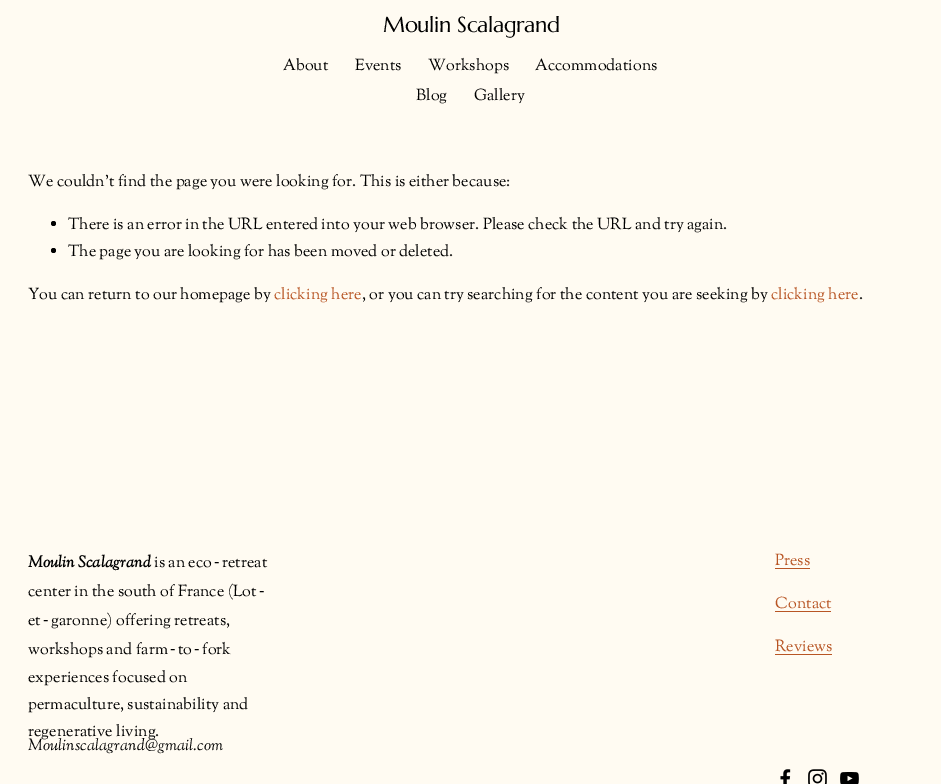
%!PS
<< /PageSize [941 784] >> setpagedevice
/rgb { 3 { 255 div 3 1 roll } repeat setrgbcolor } def
/font { [ exch dup neg 0 0 3 -1 roll 0 0 ] selectfont } def
/circle { newpath 0 360 arc closepath } def
/picture { 5 dict begin { /h /w /y /x /name } { exch def } forall
  gsave x y translate w h scale
  w h 8 [w 0 0 h 0 0] name (r) file false 3 colorimage grestore end } def
0 784 translate 1 -1 scale
4 setmiterlimit
255 251 242 rgb
0 0 941 784 rectfill
0 0 0 rgb
53.5 223.5 2.5 circle fill
53.5 250.5 2.5 circle fill
[
  [775 568 35 1 184 85 36]
  [775 611 56 1 184 85 36]
  [775 654 57 1 184 85 36]
] { aload pop rgb rectfill } forall
(img/1.rgb) 780 769 11 15 picture
(img/2.rgb) 808 769 19 15 picture
(img/3.rgb) 840 772 19 12 picture
/Marcellus-Regular 21.75 font
0 0 0 rgb
383 32 moveto -0.4 0 (Moulin Scalagrand) ashow
/SortsMillGoudy-Regular 16 font
[
  [(About) 283 70]
  [(Events) 355 70]
  [(Workshops) 428 70]
  [(Accommodations) 535 70]
  [(Blog) 416 100]
  [(Gallery) 474 100]
  [(We couldn't find the page you were looking for. This is either because:) 28 186]
  [(There is an error in the URL entered into your web browser. Please check the URL and try again.) 68 229]
  [(The page you are looking for has been moved or deleted.) 68 256]
  [(You can return to our homepage by) 28 299]
] { aload pop moveto show } forall
184 85 36 rgb
274 299 moveto (clicking here) show
0 0 0 rgb
362 299 moveto (, or you can try searching for the content you are seeking by) show
184 85 36 rgb
771 299 moveto (clicking here) show
0 0 0 rgb
859 299 moveto (.) show
/SortsMillGoudy-BoldItalic 16 font
28 567 moveto (Moulin Scalagrand) show
/SortsMillGoudy-Regular 16 font
154 567 moveto (is an eco) show
/DejaVuSansMono-Regular 16 font
212 567 moveto (-) show
/SortsMillGoudy-Regular 16 font
222 567 moveto (retreat) show
28 596 moveto (center in the south of France \(Lot) show
/DejaVuSansMono-Regular 16 font
257 596 moveto (-) show
/SortsMillGoudy-Regular 16 font
28 625 moveto (et) show
/DejaVuSansMono-Regular 16 font
41 625 moveto (-) show
/SortsMillGoudy-Regular 16 font
51 625 moveto (garonne\) offering retreats,) show
28 654 moveto (workshops and farm) show
/DejaVuSansMono-Regular 16 font
168 654 moveto (-) show
/SortsMillGoudy-Regular 16 font
178 654 moveto (to) show
/DejaVuSansMono-Regular 16 font
192 654 moveto (-) show
/SortsMillGoudy-Regular 16 font
[
  [(fork) 202 654]
  [(experiences focused on) 28 682]
  [(permaculture, sustainability and) 28 709]
  [(regenerative living.) 28 736]
] { aload pop moveto show } forall
184 85 36 rgb
[
  [(Press) 775 565]
  [(Contact) 775 608]
  [(Reviews) 775 651]
] { aload pop moveto show } forall
/SortsMillGoudy-Italic 16 font
0 0 0 rgb
28 750 moveto (Moulinscalagrand@gmail.com) show
showpage
